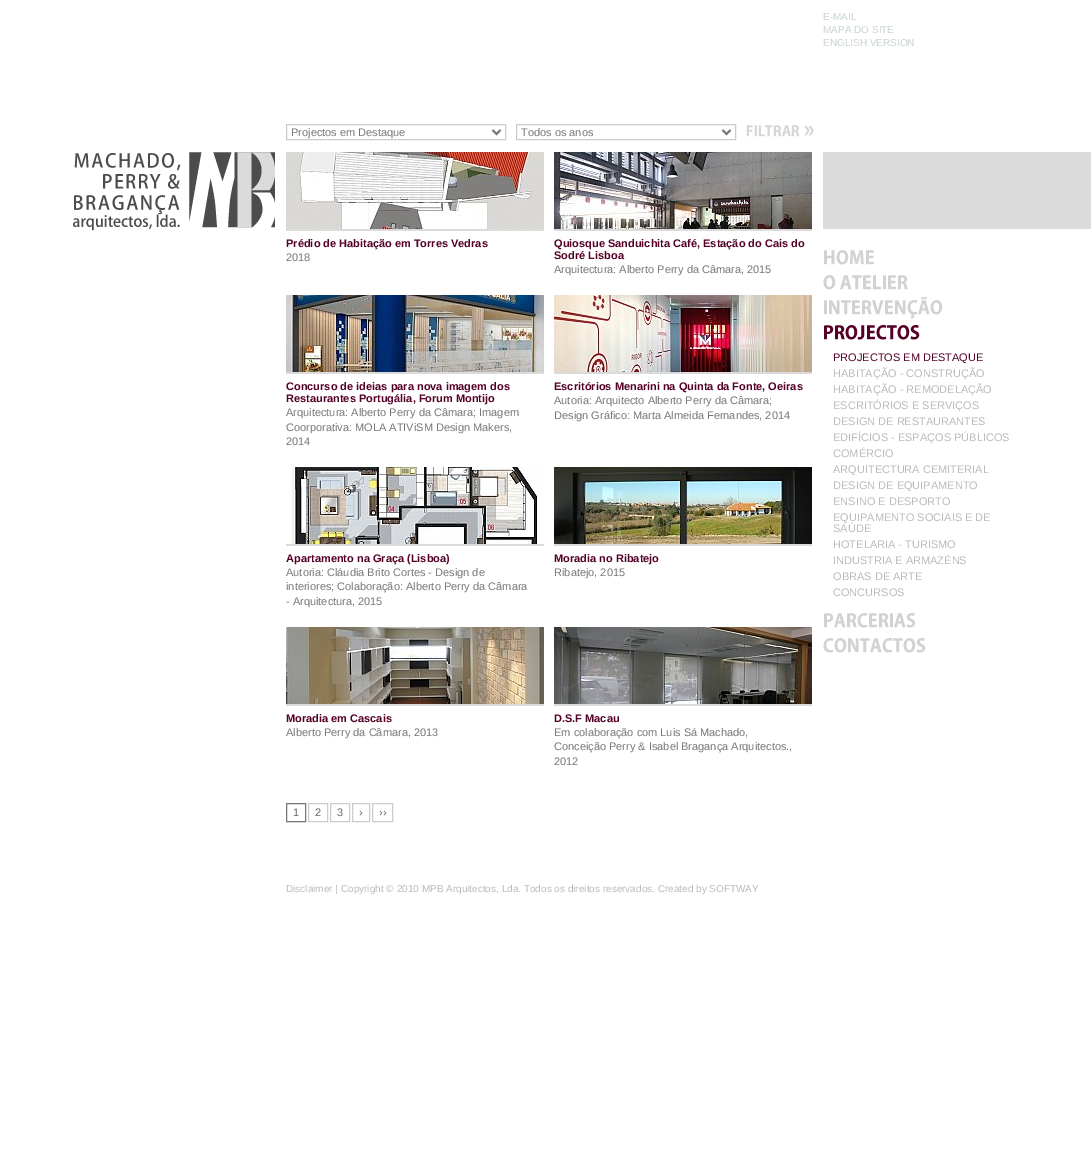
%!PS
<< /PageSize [1091 1161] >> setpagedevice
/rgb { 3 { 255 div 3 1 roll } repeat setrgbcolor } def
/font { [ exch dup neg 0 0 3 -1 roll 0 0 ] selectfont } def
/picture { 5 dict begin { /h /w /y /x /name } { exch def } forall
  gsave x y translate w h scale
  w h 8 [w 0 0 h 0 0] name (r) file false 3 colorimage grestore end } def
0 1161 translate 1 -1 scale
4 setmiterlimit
255 255 255 rgb
0 0 1091 1161 rectfill
(img/1.rgb) 73 152 202 79 picture
204 204 204 rgb
286.5 124.5 219 15 rectstroke
119 119 119 rgb
2 setlinewidth
492.5 130 moveto 496.5 134 lineto 500.5 130 lineto stroke
204 204 204 rgb
1 setlinewidth
516.5 124.5 219 15 rectstroke
119 119 119 rgb
2 setlinewidth
722.5 130 moveto 726.5 134 lineto 730.5 130 lineto stroke
(img/2.rgb) 746 125 68 12 picture
219 219 219 rgb
286 229 258 2 rectfill
(img/3.rgb) 286 152 258 77 picture
554 229 258 2 rectfill
(img/4.rgb) 554 152 258 77 picture
286 372 258 2 rectfill
(img/5.rgb) 286 295 258 77 picture
554 372 258 2 rectfill
(img/6.rgb) 554 295 258 77 picture
286 544 258 2 rectfill
(img/7.rgb) 286 467 258 77 picture
554 544 258 2 rectfill
(img/8.rgb) 554 467 258 77 picture
286 704 258 2 rectfill
(img/9.rgb) 286 627 258 77 picture
554 704 258 2 rectfill
(img/10.rgb) 554 627 258 77 picture
119 119 119 rgb
1 setlinewidth
286.5 803.5 19 18 rectstroke
204 204 204 rgb
308.5 803.5 19 18 rectstroke
330.5 803.5 19 18 rectstroke
352.5 803.5 17 18 rectstroke
372.5 803.5 20 18 rectstroke
(img/11.rgb) 824 250 50 15 picture
(img/12.rgb) 823 275 85 15 picture
(img/13.rgb) 824 296 119 23 picture
(img/14.rgb) 824 325 96 15 picture
(img/15.rgb) 824 613 92 15 picture
(img/16.rgb) 823 638 103 15 picture
219 219 219 rgb
823 152 268 77 rectfill
/LiberationSans-Regular 11 font
119 119 119 rgb
291 136 moveto (Projectos em Destaque) show
521 136 moveto (Todos os anos) show
/LiberationSans-Bold 11 font
85 0 38 rgb
286 247 moveto (Prédio de Habitação em Torres Vedras) show
/LiberationSans-Regular 11 font
119 119 119 rgb
286 261 moveto (2018) show
/LiberationSans-Bold 11 font
85 0 38 rgb
554 247 moveto (Quiosque Sanduichita Café, Estação do Cais do) show
554 259 moveto (Sodré Lisboa) show
/LiberationSans-Regular 11 font
119 119 119 rgb
554 273 moveto (Arquitectura: Alberto Perry da Câmara, 2015) show
/LiberationSans-Bold 11 font
85 0 38 rgb
286 390 moveto (Concurso de ideias para nova imagem dos) show
286 402 moveto (Restaurantes Portugália, Forum Montijo) show
/LiberationSans-Regular 11 font
119 119 119 rgb
[
  [(Arquitectura: Alberto Perry da Câmara; Imagem) 286 416]
  [(Coorporativa: MOLA ATIViSM Design Makers,) 286 431]
  [(2014) 286 445]
] { aload pop moveto show } forall
/LiberationSans-Bold 11 font
85 0 38 rgb
554 390 moveto (Escritórios Menarini na Quinta da Fonte, Oeiras) show
/LiberationSans-Regular 11 font
119 119 119 rgb
554 404 moveto (Autoria: Arquitecto Alberto Perry da Câmara;) show
554 419 moveto (Design Gráfico: Marta Almeida Fernandes, 2014) show
/LiberationSans-Bold 11 font
85 0 38 rgb
286 562 moveto (Apartamento na Graça \(Lisboa\)) show
/LiberationSans-Regular 11 font
119 119 119 rgb
[
  [(Autoria: Cláudia Brito Cortes - Design de) 286 576]
  [(interiores; Colaboração: Alberto Perry da Câmara) 286 590]
  [(- Arquitectura, 2015) 286 605]
] { aload pop moveto show } forall
/LiberationSans-Bold 11 font
85 0 38 rgb
554 562 moveto (Moradia no Ribatejo) show
/LiberationSans-Regular 11 font
119 119 119 rgb
554 576 moveto (Ribatejo, 2015) show
/LiberationSans-Bold 11 font
85 0 38 rgb
286 722 moveto (Moradia em Cascais) show
/LiberationSans-Regular 11 font
119 119 119 rgb
286 736 moveto (Alberto Perry da Câmara, 2013) show
/LiberationSans-Bold 11 font
85 0 38 rgb
554 722 moveto (D.S.F Macau) show
/LiberationSans-Regular 11 font
119 119 119 rgb
[
  [(Em colaboração com Luis Sá Machado,) 554 736]
  [(Conceição Perry & Isabel Bragança Arquitectos.,) 554 750]
  [(2012) 554 765]
] { aload pop moveto show } forall
102 102 102 rgb
[
  [(1) 293 816]
  [(2) 315 816]
  [(3) 337 816]
  [(›) 359 816]
  [(››) 379 816]
] { aload pop moveto show } forall
/LiberationSans-Regular 10 font
187 187 187 rgb
286 892 moveto (Disclaimer | Copyright © 2010 MPB Arquitectos, Lda. Todos os direitos reservados. Created by SOFTWAY) show
202 211 211 rgb
[
  [(E-MAIL) 823 20]
  [(MAPA DO SITE) 823 33]
  [(ENGLISH VERSION) 823 46]
] { aload pop moveto show } forall
/LiberationSans-Regular 11 font
85 0 38 rgb
833 361 moveto (PROJECTOS EM DESTAQUE) show
187 187 187 rgb
[
  [(HABITAÇÃO - CONSTRUÇÃO) 833 377]
  [(HABITAÇÃO - REMODELAÇÃO) 833 393]
  [(ESCRITÓRIOS E SERVIÇOS) 833 409]
  [(DESIGN DE RESTAURANTES) 833 425]
  [(EDIFÍCIOS - ESPAÇOS PÚBLICOS) 833 441]
  [(COMÉRCIO) 833 457]
  [(ARQUITECTURA CEMITERIAL) 833 473]
  [(DESIGN DE EQUIPAMENTO) 833 489]
  [(ENSINO E DESPORTO) 833 505]
  [(EQUIPAMENTO SOCIAIS E DE) 833 521]
  [(SAÚDE) 833 532]
  [(HOTELARIA - TURISMO) 833 548]
  [(INDUSTRIA E ARMAZÉNS) 833 564]
  [(OBRAS DE ARTE) 833 580]
  [(CONCURSOS) 833 596]
] { aload pop moveto show } forall
showpage
